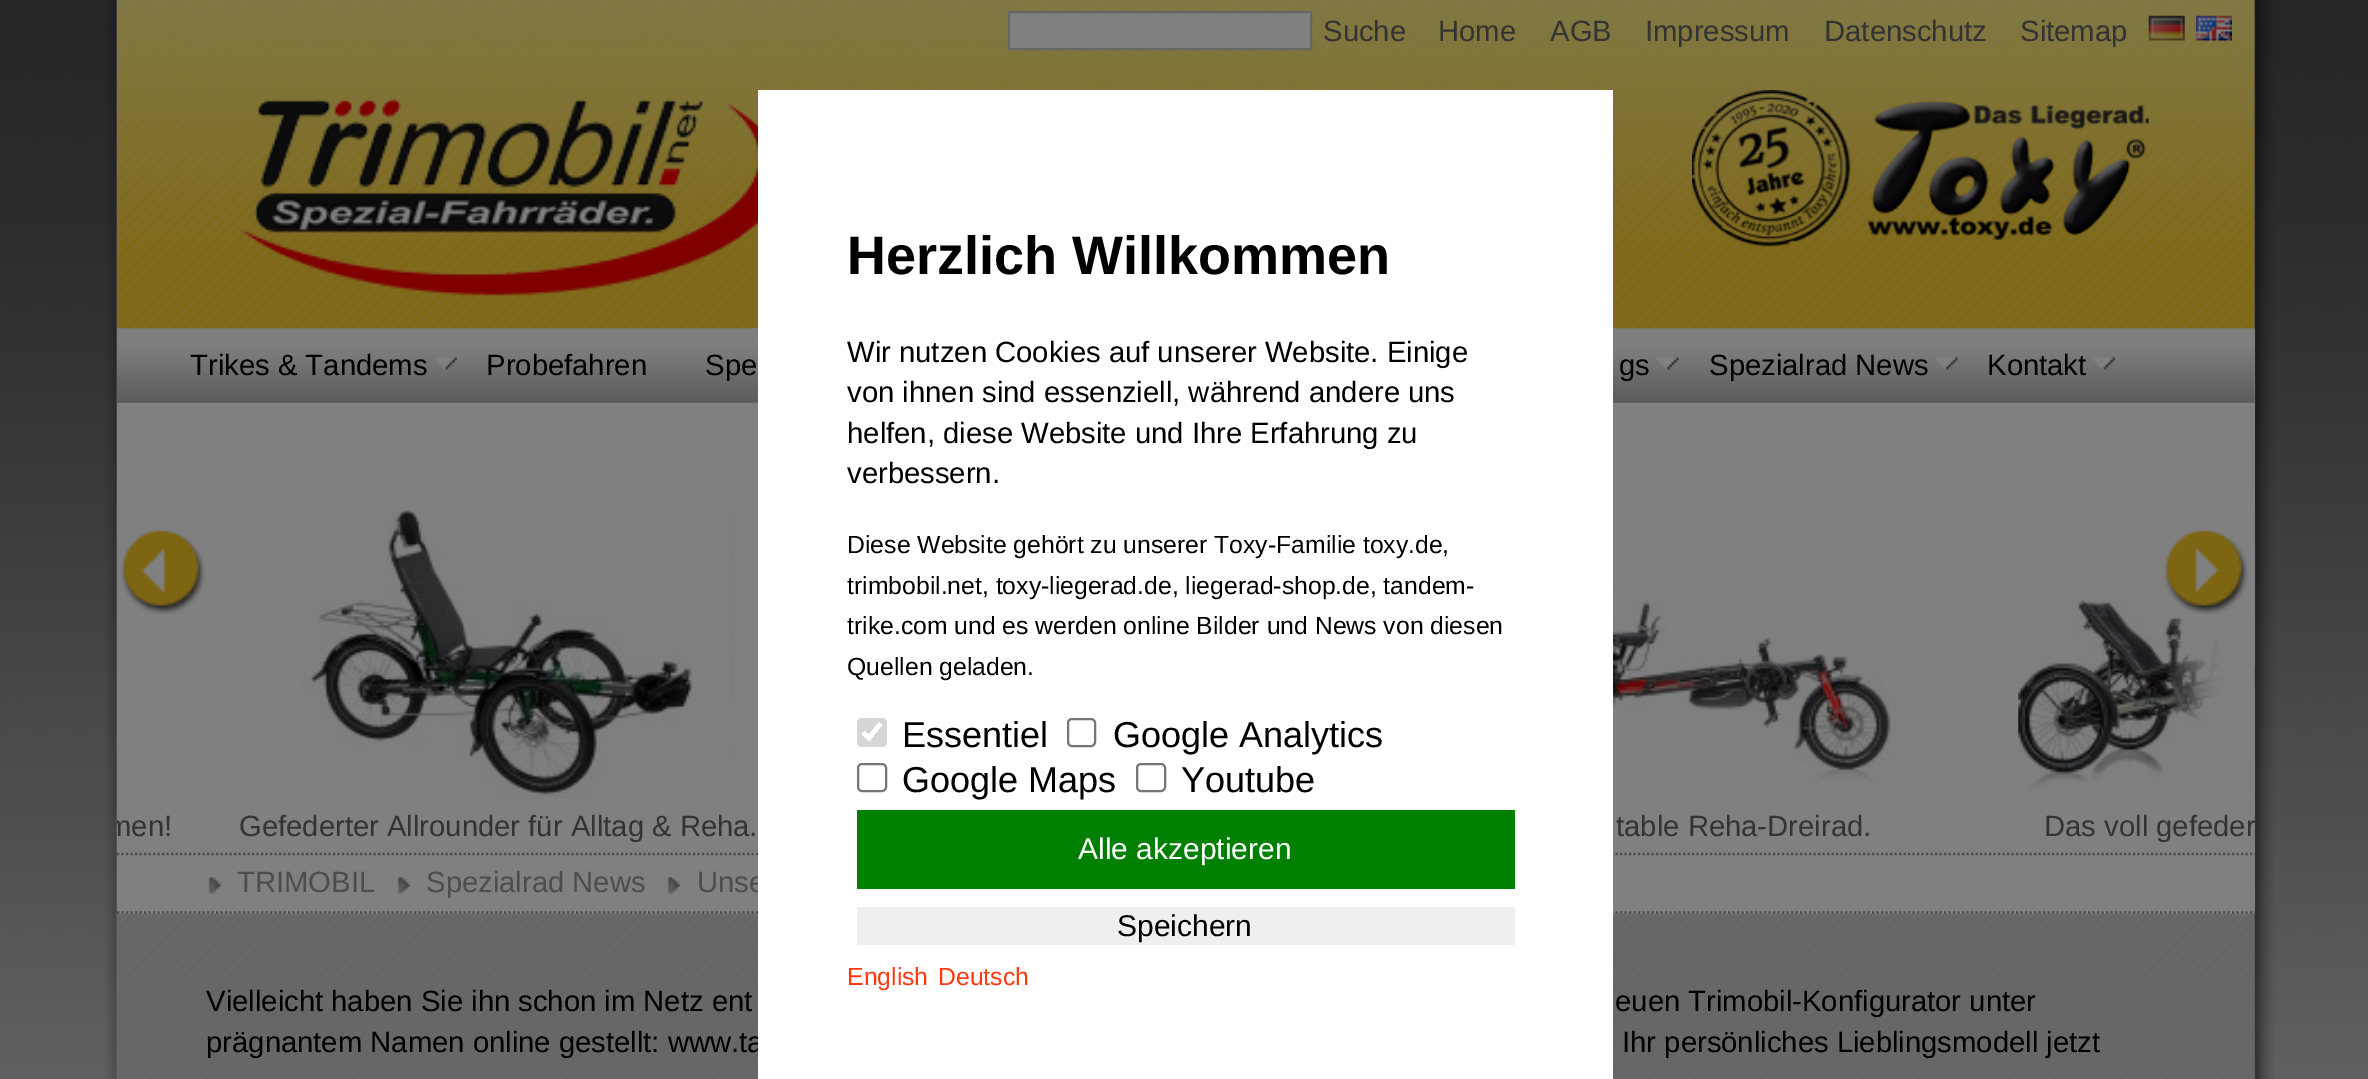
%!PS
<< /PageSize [2368 1079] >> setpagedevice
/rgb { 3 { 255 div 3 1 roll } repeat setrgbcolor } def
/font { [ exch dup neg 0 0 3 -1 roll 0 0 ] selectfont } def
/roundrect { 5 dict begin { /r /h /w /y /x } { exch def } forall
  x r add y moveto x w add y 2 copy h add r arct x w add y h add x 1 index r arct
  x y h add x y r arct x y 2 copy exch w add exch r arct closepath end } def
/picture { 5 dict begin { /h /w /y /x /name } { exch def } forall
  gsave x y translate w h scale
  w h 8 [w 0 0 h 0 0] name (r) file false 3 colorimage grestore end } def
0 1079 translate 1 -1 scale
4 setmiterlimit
255 255 255 rgb
0 0 2368 1079 rectfill
(img/1.rgb) 0 0 2368 1079 picture
(img/2.rgb) 105 0 2171 1079 picture
(img/3.rgb) 117 0 2138 329 picture
128 128 128 rgb
1009 12 moveto 1311 12 lineto 1311 49 lineto 1009 49 lineto closepath gsave fill grestore
102 102 102 rgb
2 setlinewidth
stroke
(img/4.rgb) 2148 15 37 26 picture
(img/5.rgb) 2196 15 36 26 picture
(img/6.rgb) 240 98 518 198 picture
(img/7.rgb) 1692 90 457 157 picture
128 128 128 rgb
117 329 2138 585 rectfill
(img/8.rgb) 117 328 2138 75 picture
(img/9.rgb) 434 357 23 13 picture
(img/10.rgb) 1656 357 23 13 picture
(img/10.rgb) 1935 357 23 13 picture
(img/11.rgb) 2092 357 23 13 picture
(img/12.rgb) 117 914 2138 165 picture
(img/13.rgb) 121 530 84 85 picture
(img/18.rgb) 2018 600 237 191 picture
(img/14.rgb) 2164 530 84 85 picture
(img/15.rgb) 2167 618 88 103 picture
(img/16.rgb) 301 510 434 289 picture
(img/17.rgb) 1613 544 288 245 picture
gsave
117 0 2138 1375 rectclip
77 77 77 rgb
2.2 setlinewidth
[2.25 2.25] 0 setdash
117 854 moveto 2299.5 854 lineto stroke
117 912.5 moveto 2299.5 912.5 lineto stroke
grestore
(img/19.rgb) 208 877 14 17 picture
(img/19.rgb) 397 877 14 17 picture
(img/19.rgb) 667 877 14 17 picture
/LiberationSans-Regular 29.25 font
51 51 51 rgb
[
  [(Suche) 1323 41]
  [(Home) 1438 41]
  [(AGB) 1550 41]
  [(Impressum) 1645 41]
  [(Datenschutz) 1824 41]
  [(Sitemap) 2020 41]
] { aload pop moveto show } forall
0 0 0 rgb
[
  [(Trikes & Tandems) 190 375]
  [(Probefahren) 486 375]
  [(Spe) 705 375]
  [(gs) 1619 375]
  [(Spezialrad News) 1709 375]
  [(Kontakt) 1987 375]
] { aload pop moveto show } forall
gsave
117 403 90 450 rectclip
51 51 51 rgb
107 836 moveto (men!) show
grestore
51 51 51 rgb
239 836 moveto (Gefederter Allrounder für Alltag & Reha.) show
1616 836 moveto (table Reha-Dreirad.) show
gsave
1962 403 293 450 rectclip
2044 836 moveto (Das voll gefeder) show
grestore
77 77 77 rgb
[
  [(TRIMOBIL) 237 892]
  [(Spezialrad News) 426 892]
  [(Unse) 697 892]
] { aload pop moveto show } forall
0 0 0 rgb
[
  [(Vielleicht haben Sie ihn schon im Netz ent) 206 1011]
  [(euen Trimobil-Konfigurator unter) 1615 1011]
  [(prägnantem Namen online gestellt: www.ta) 206 1052]
  [(Ihr persönliches Lieblingsmodell jetzt) 1622 1052]
] { aload pop moveto show } forall
255 255 255 rgb
758 90 855 989 rectfill
/LiberationSans-Bold 54 font
0 0 0 rgb
847 274 moveto (Herzlich Willkommen) show
/LiberationSans-Regular 29.25 font
[
  [(Wir nutzen Cookies auf unserer Website. Einige) 847 362]
  [(von ihnen sind essenziell, während andere uns) 847 402]
  [(helfen, diese Website und Ihre Erfahrung zu) 847 443]
  [(verbessern.) 847 483]
] { aload pop moveto show } forall
/LiberationSans-Regular 24.75 font
[
  [(Diese Website gehört zu unserer Toxy-Familie toxy.de,) 847 553]
  [(trimbobil.net, toxy-liegerad.de, liegerad-shop.de, tandem-) 847 594]
  [(trike.com und es werden online Bilder und News von diesen) 847 634]
  [(Quellen geladen.) 847 675]
] { aload pop moveto show } forall
214 214 214 rgb
857 718 30 29 5 roundrect fill
255 255 255 rgb
4.7 setlinewidth
863 732.5 moveto 869 738 lineto 880.5 723.5 lineto stroke
/LiberationSans-Regular 36 font
0 0 0 rgb
902 747 moveto (Essentiel) show
118 118 118 rgb
2 setlinewidth
1068 719 27 27 4 roundrect stroke
0 0 0 rgb
1113 747 moveto (Google Analytics) show
118 118 118 rgb
858 764 28 27 4 roundrect stroke
0 0 0 rgb
902 792 moveto (Google Maps) show
118 118 118 rgb
1137 764 28 27 4 roundrect stroke
0 0 0 rgb
1181 792 moveto (Youtube) show
0 128 0 rgb
857 810 658 79 rectfill
/LiberationSans-Regular 30 font
255 255 255 rgb
1078 859 moveto (Alle akzeptieren) show
239 239 239 rgb
857 907 658 38 rectfill
0 0 0 rgb
1117 936 moveto (Speichern) show
/LiberationSans-Regular 24.75 font
254 56 15 rgb
847 985 moveto (English) show
938 985 moveto (Deutsch) show
showpage
